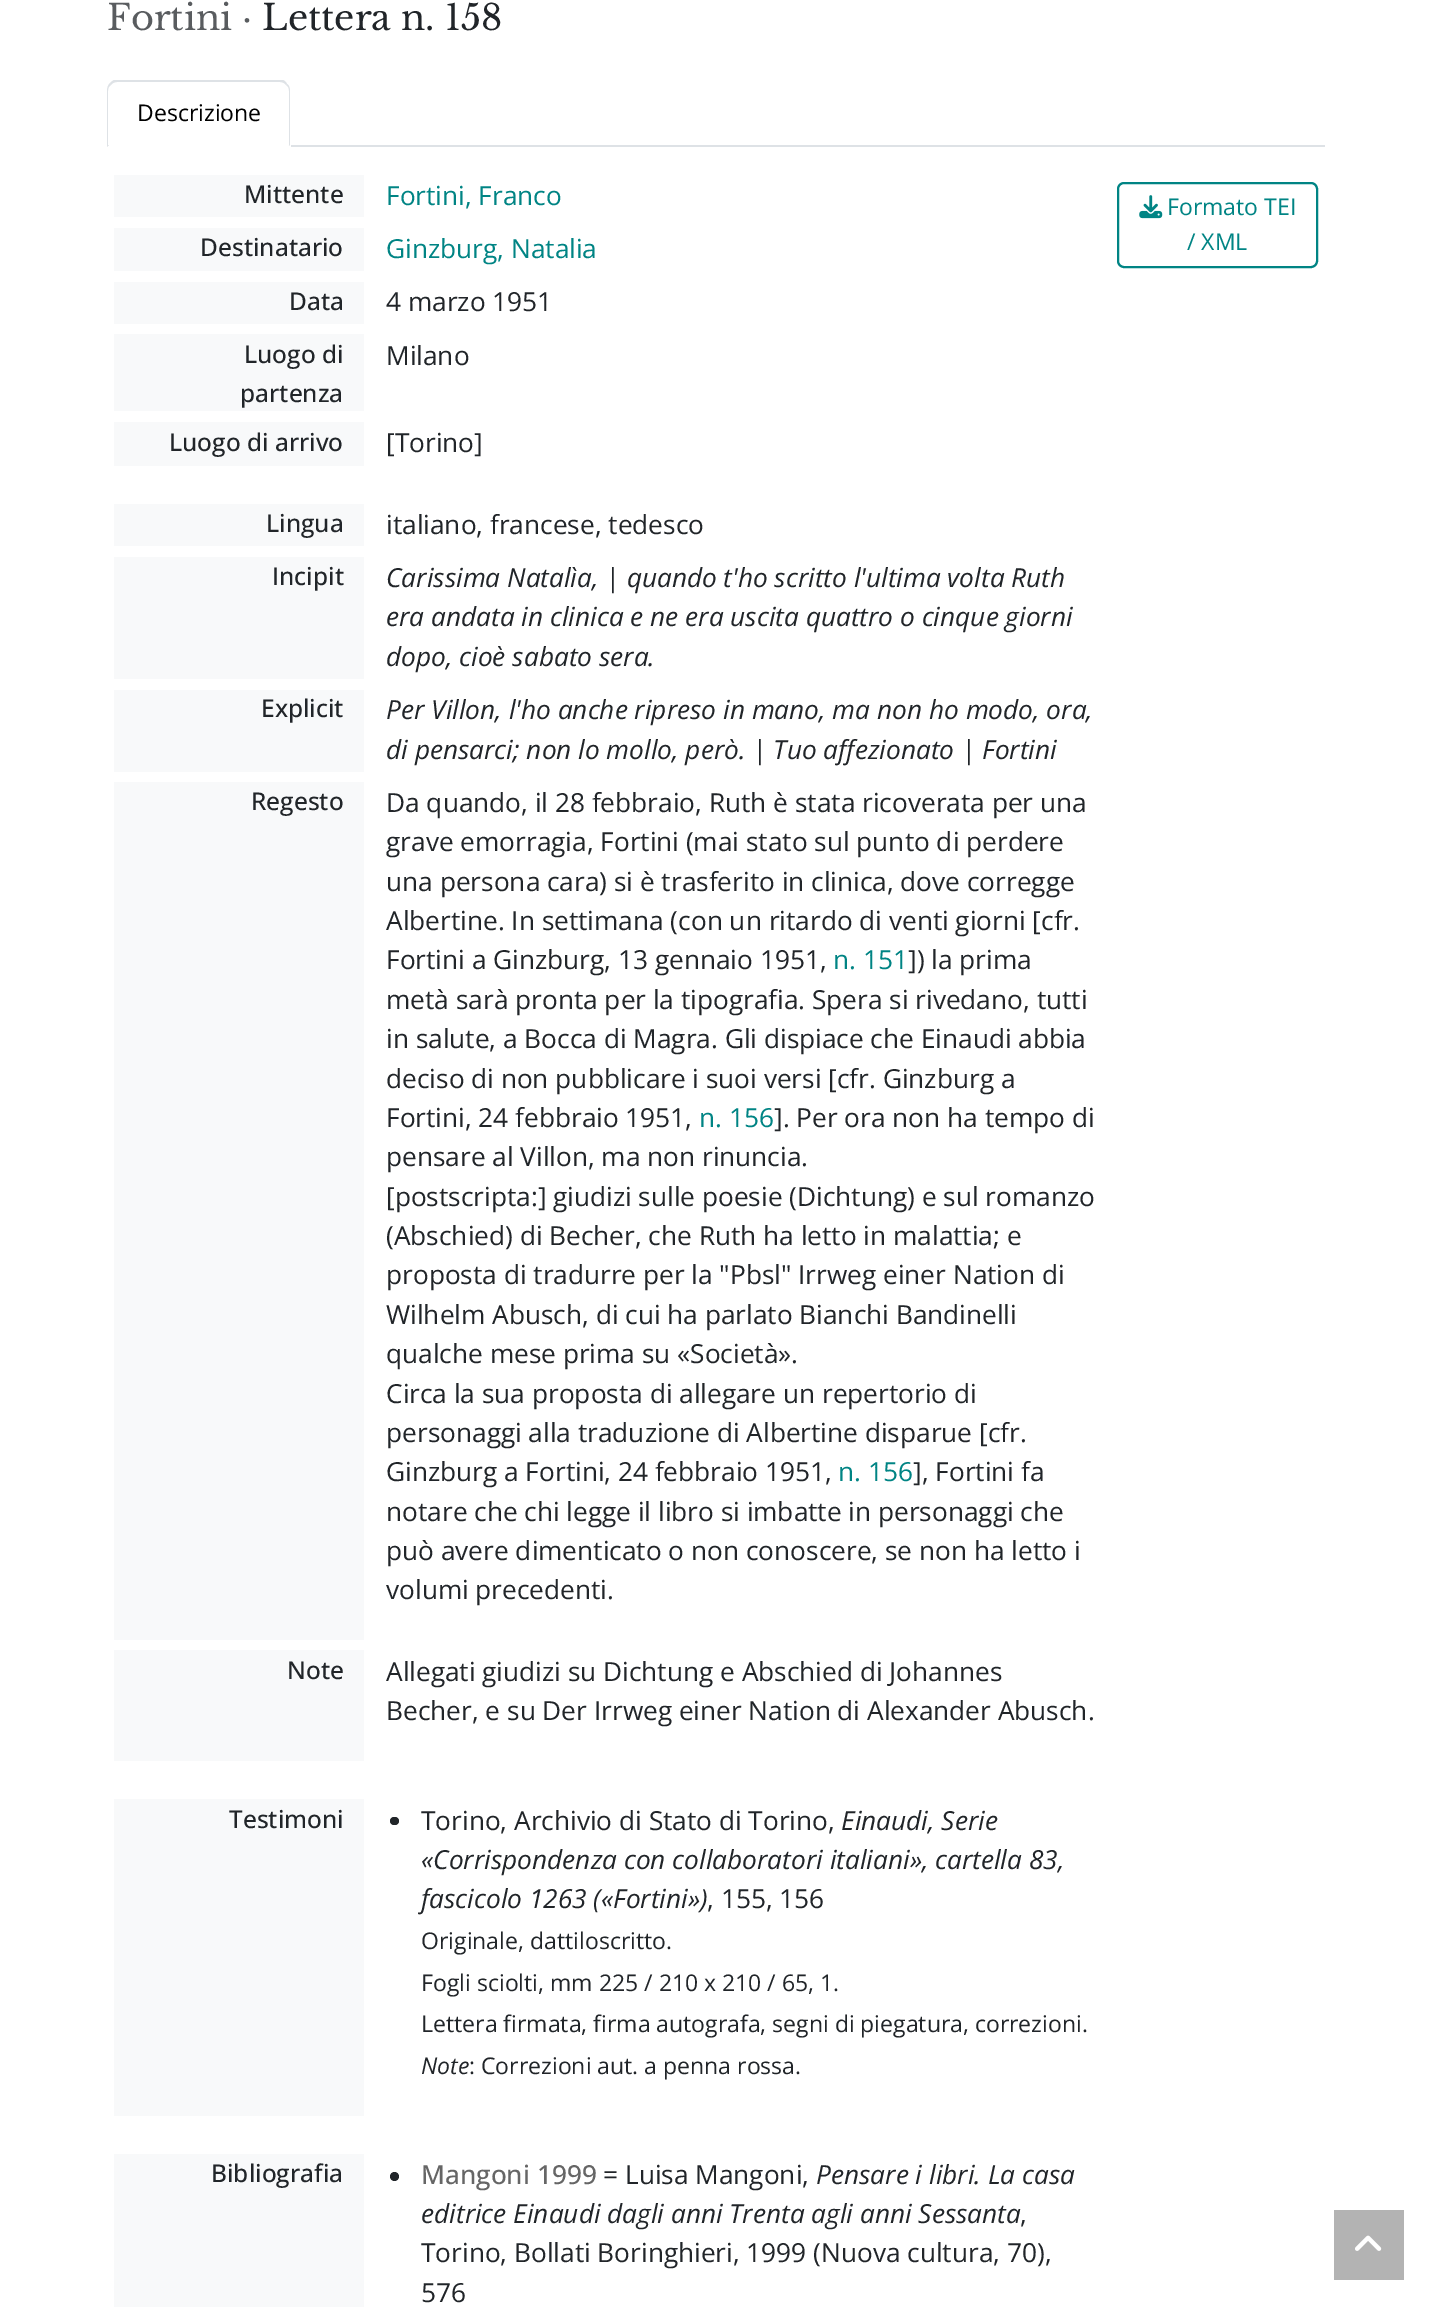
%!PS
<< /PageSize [1430 2307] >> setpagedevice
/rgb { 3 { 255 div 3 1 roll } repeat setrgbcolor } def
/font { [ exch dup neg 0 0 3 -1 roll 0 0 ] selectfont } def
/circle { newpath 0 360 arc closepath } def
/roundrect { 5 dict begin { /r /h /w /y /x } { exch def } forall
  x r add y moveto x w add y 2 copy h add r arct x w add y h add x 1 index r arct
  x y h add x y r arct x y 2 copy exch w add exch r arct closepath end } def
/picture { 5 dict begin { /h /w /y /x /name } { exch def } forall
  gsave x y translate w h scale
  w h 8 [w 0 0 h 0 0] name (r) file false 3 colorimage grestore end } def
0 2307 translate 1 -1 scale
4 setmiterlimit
255 255 255 rgb
0 0 1430 2307 rectfill
222 226 230 rgb
291 145 1034 2 rectfill
117 82 moveto 115 82 112 83 111 85 curveto 110 83 lineto 111 82 112 81 114 80 curveto 283 80 lineto 285 81 286 82 287 84 curveto 286 85 lineto 285 83 282 82 280 82 curveto closepath fill
287 84 moveto 289 85 290 88 290 91 curveto 290 146 lineto 288 145 lineto 289 145 lineto 289 91 lineto 289 88 288 86 286 85 curveto closepath fill
255 255 255 rgb
107 147 moveto 290 147 lineto 290 146 lineto 288 145 lineto 109 145 lineto closepath fill
222 226 230 rgb
107 147 moveto 107 91 lineto 107 88 108 85 110 83 curveto 111 85 lineto 109 86 108 88 108 91 curveto 108 145 lineto 109 145 lineto closepath fill
[
  [114 175 250 42 248 249 250]
  [114 228 250 43 248 249 250]
  [114 282 250 42 248 249 250]
  [114 334 250 77 248 249 250]
  [114 422 250 44 248 249 250]
  [114 504 250 42 248 249 250]
  [114 557 250 122 248 249 250]
  [114 690 250 82 248 249 250]
  [114 782 250 858 248 249 250]
  [114 1650 250 111 248 249 250]
  [114 1799 250 317 248 249 250]
] { aload pop rgb rectfill } forall
33 37 41 rgb
390 1817 9 8 4 roundrect fill
248 249 250 rgb
114 2154 250 153 rectfill
33 37 41 rgb
394.5 2176.5 4.5 circle fill
0 132 132 rgb
2 setlinewidth
1118 183 199 84 6 roundrect stroke
(img/1.rgb) 1139 195 24 24 picture
179 179 179 rgb
1334 2210 70 70 rectfill
(img/2.rgb) 1355 2235 27 16 picture
/LibreBaskerville-Regular 35.25 font
89 92 95 rgb
107 30 moveto (Fortini ·) show
33 37 41 rgb
262 30 moveto (Lettera n. 158) show
/OpenSans-Regular 23 font
0 0 0 rgb
137 121 moveto (Descrizione) show
/OpenSans-Medium 24.5 font
33 37 41 rgb
244 203 moveto (Mittente) show
/OpenSans-Regular 26.25 font
0 132 132 rgb
386 205 moveto (Fortini, Franco) show
/OpenSans-Medium 24.5 font
33 37 41 rgb
200 256 moveto (Destinatario) show
/OpenSans-Regular 26.25 font
0 132 132 rgb
386 258 moveto (Ginzburg, Natalia) show
/OpenSans-Medium 24.5 font
33 37 41 rgb
289 310 moveto (Data) show
/OpenSans-Regular 26.25 font
386 311 moveto (4 marzo 1951) show
/OpenSans-Medium 24.5 font
244 363 moveto (Luogo di) show
240 402 moveto (partenza) show
/OpenSans-Regular 26.25 font
386 365 moveto (Milano) show
/OpenSans-Medium 24.5 font
169 451 moveto (Luogo di arrivo) show
/OpenSans-Regular 26.25 font
386 452 moveto ([Torino]) show
/OpenSans-Medium 24.5 font
266 532 moveto (Lingua) show
/OpenSans-Regular 26.25 font
386 534 moveto (italiano, francese, tedesco) show
/OpenSans-Medium 24.5 font
272 585 moveto (Incipit) show
/OpenSans-Italic 26.25 font
[
  [(Carissima Natalìa, | quando t'ho scritto l'ultima volta Ruth) 386 587]
  [(era andata in clinica e ne era uscita quattro o cinque giorni) 386 626]
  [(dopo, cioè sabato sera.) 386 666]
] { aload pop moveto show } forall
/OpenSans-Medium 24.5 font
261 717 moveto (Explicit) show
/OpenSans-Italic 26.25 font
386 719 moveto (Per Villon, l'ho anche ripreso in mano, ma non ho modo, ora,) show
386 759 moveto (di pensarci; non lo mollo, però. | Tuo affezionato | Fortini) show
/OpenSans-Medium 24.5 font
251 810 moveto (Regesto) show
/OpenSans-Regular 26.25 font
[
  [(Da quando, il 28 febbraio, Ruth è stata ricoverata per una) 386 812]
  [(grave emorragia, Fortini \(mai stato sul punto di perdere) 386 851]
  [(una persona cara\) si è trasferito in clinica, dove corregge) 386 891]
  [(Albertine. In settimana \(con un ritardo di venti giorni [cfr.) 386 930]
  [(Fortini a Ginzburg, 13 gennaio 1951,) 386 969]
] { aload pop moveto show } forall
0 132 132 rgb
833 969 moveto (n. 151) show
33 37 41 rgb
[
  [(]\) la prima) 908 969]
  [(metà sarà pronta per la tipografia. Spera si rivedano, tutti) 386 1009]
  [(in salute, a Bocca di Magra. Gli dispiace che Einaudi abbia) 386 1048]
  [(deciso di non pubblicare i suoi versi [cfr. Ginzburg a) 386 1088]
  [(Fortini, 24 febbraio 1951,) 386 1127]
] { aload pop moveto show } forall
0 132 132 rgb
699 1127 moveto (n. 156) show
33 37 41 rgb
[
  [(]. Per ora non ha tempo di) 774 1127]
  [(pensare al Villon, ma non rinuncia.) 386 1166]
  [([postscripta:] giudizi sulle poesie \(Dichtung\) e sul romanzo) 386 1206]
  [(\(Abschied\) di Becher, che Ruth ha letto in malattia; e) 386 1245]
  [(proposta di tradurre per la "Pbsl" Irrweg einer Nation di) 386 1284]
  [(Wilhelm Abusch, di cui ha parlato Bianchi Bandinelli) 386 1324]
  [(qualche mese prima su «Società».) 386 1363]
  [(Circa la sua proposta di allegare un repertorio di) 386 1403]
  [(personaggi alla traduzione di Albertine disparue [cfr.) 386 1442]
  [(Ginzburg a Fortini, 24 febbraio 1951,) 386 1481]
] { aload pop moveto show } forall
0 132 132 rgb
838 1481 moveto (n. 156) show
33 37 41 rgb
[
  [(], Fortini fa) 913 1481]
  [(notare che chi legge il libro si imbatte in personaggi che) 386 1521]
  [(può avere dimenticato o non conoscere, se non ha letto i) 386 1560]
  [(volumi precedenti.) 386 1599]
] { aload pop moveto show } forall
/OpenSans-Medium 24.5 font
287 1679 moveto (Note) show
/OpenSans-Regular 26.25 font
386 1681 moveto (Allegati giudizi su Dichtung e Abschied di Johannes) show
386 1720 moveto (Becher, e su Der Irrweg einer Nation di Alexander Abusch.) show
/OpenSans-Medium 24.5 font
229 1828 moveto (Testimoni) show
/OpenSans-Regular 26.25 font
421 1830 moveto (Torino, Archivio di Stato di Torino,) show
/OpenSans-Italic 26.25 font
[
  [(Einaudi, Serie) 841 1830]
  [(«Corrispondenza con collaboratori italiani», cartella 83,) 421 1869]
  [(fascicolo 1263 \(«Fortini»\)) 421 1908]
] { aload pop moveto show } forall
/OpenSans-Regular 26.25 font
707 1908 moveto (, 155, 156) show
/OpenSans-Regular 23 font
[
  [(Originale, dattiloscritto.) 421 1949]
  [(Fogli sciolti, mm 225 / 210 x 210 / 65, 1.) 421 1991]
  [(Lettera firmata, firma autografa, segni di piegatura, correzioni.) 421 2032]
] { aload pop moveto show } forall
/OpenSans-Italic 23 font
421 2074 moveto (Note) show
/OpenSans-Regular 23 font
469 2074 moveto (: Correzioni aut. a penna rossa.) show
/OpenSans-Medium 24.5 font
211 2182 moveto (Bibliografia) show
/OpenSans-Medium 26.25 font
102 102 102 rgb
421 2184 moveto (Mangoni 1999) show
/OpenSans-Regular 26.25 font
33 37 41 rgb
603 2184 moveto (= Luisa Mangoni,) show
/OpenSans-Italic 26.25 font
816 2184 moveto (Pensare i libri. La casa) show
421 2223 moveto (editrice Einaudi dagli anni Trenta agli anni Sessanta) show
/OpenSans-Regular 26.25 font
[
  [(,) 1020 2223]
  [(Torino, Bollati Boringhieri, 1999 \(Nuova cultura, 70\),) 421 2262]
  [(576) 421 2302]
] { aload pop moveto show } forall
/OpenSans-Regular 23 font
0 132 132 rgb
1167 215 moveto (Formato TEI) show
1187 250 moveto (/ XML) show
showpage
